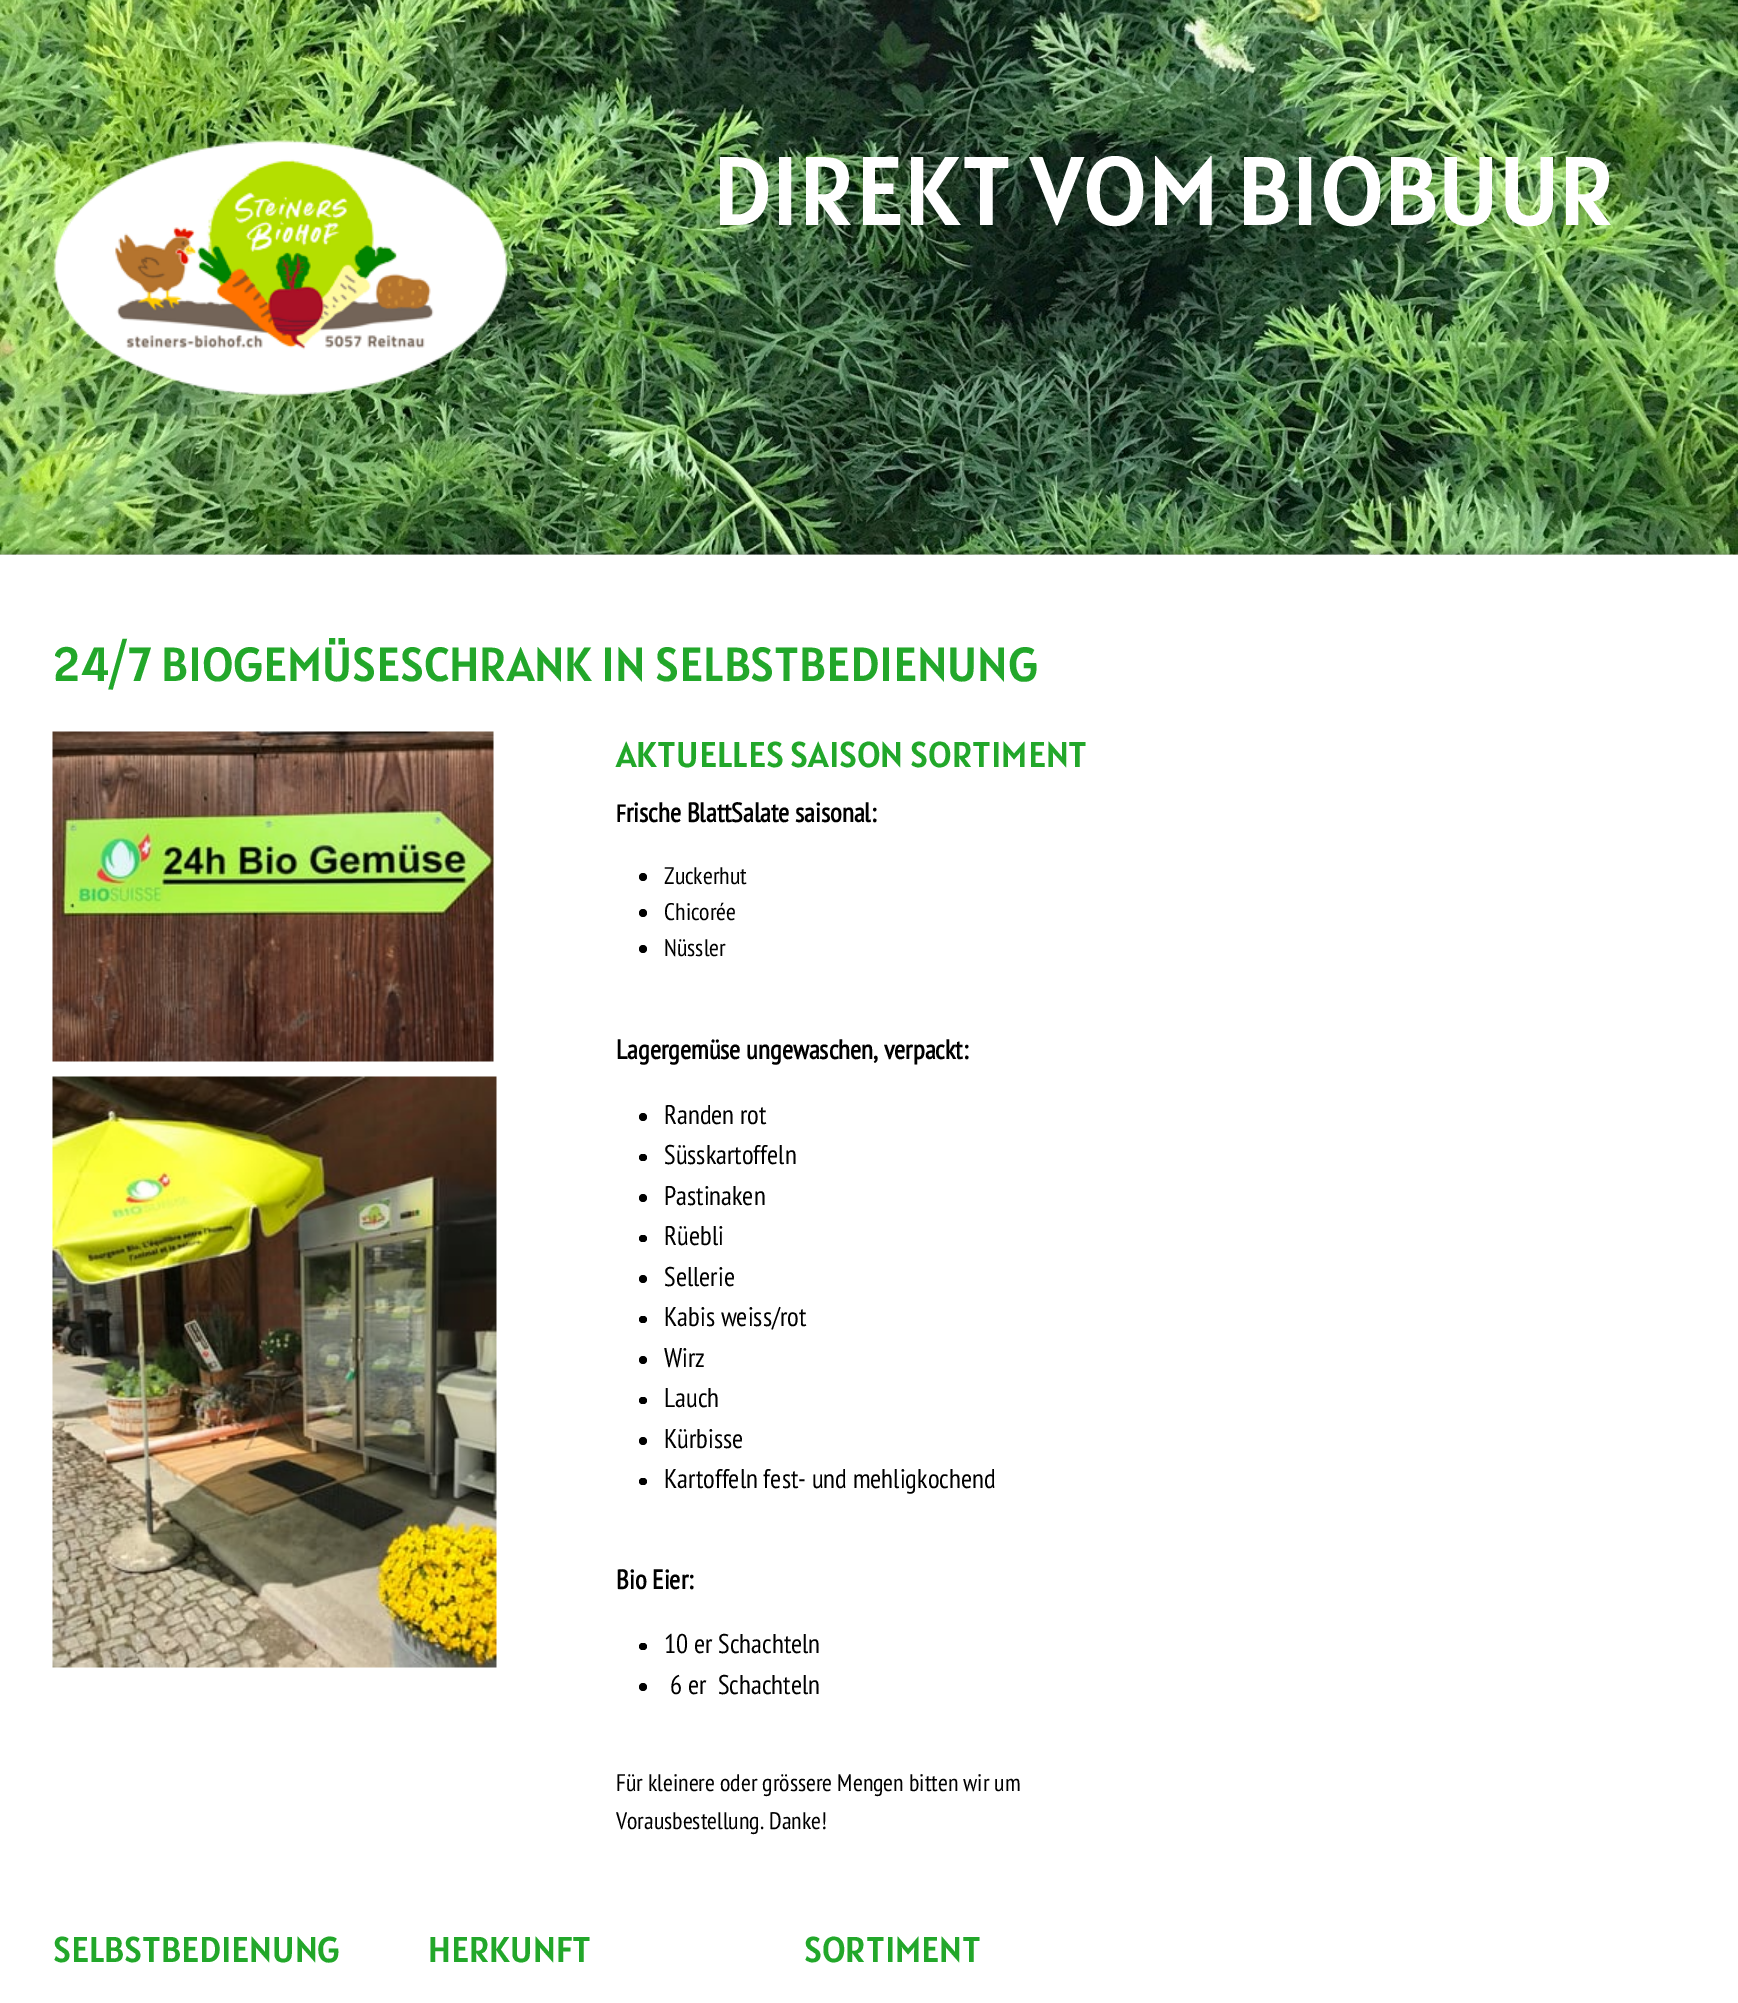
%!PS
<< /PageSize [1738 2003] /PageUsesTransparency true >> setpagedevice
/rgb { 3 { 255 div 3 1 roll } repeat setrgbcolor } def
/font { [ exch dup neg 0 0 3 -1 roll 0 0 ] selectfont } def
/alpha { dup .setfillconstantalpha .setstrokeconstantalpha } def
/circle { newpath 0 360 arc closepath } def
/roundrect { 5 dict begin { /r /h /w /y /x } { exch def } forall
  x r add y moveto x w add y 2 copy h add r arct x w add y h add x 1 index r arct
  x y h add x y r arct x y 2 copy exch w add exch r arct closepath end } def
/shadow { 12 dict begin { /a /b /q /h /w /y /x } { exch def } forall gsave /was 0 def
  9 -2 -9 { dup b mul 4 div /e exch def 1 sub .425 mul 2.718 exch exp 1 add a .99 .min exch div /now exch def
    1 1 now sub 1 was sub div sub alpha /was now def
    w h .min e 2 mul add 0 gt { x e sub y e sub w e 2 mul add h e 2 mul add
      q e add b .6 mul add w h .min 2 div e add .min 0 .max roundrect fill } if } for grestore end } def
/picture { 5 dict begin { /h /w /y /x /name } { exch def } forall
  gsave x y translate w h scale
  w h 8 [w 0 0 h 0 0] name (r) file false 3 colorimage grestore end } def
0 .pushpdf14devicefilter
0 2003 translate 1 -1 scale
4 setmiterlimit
255 255 255 rgb
0 0 1738 2003 rectfill
(img/1.rgb) 0 0 1738 555 picture
(img/2.rgb) 53 140 455 256 picture
gsave
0 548 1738 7 rectclip
0 0 0 rgb
-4 551 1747 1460 0 2.5 0.2 shadow
grestore
(img/3.rgb) 52 731 442 331 picture
(img/4.rgb) 52 1076 445 592 picture
0 0 0 rgb
643 877 4 circle fill
643 913 4 circle fill
643 949 4 circle fill
643 1117 4 circle fill
639 1154 8 7 3.5 roundrect fill
643 1198 4 circle fill
639 1235 8 7 3.5 roundrect fill
643 1279 4 circle fill
639 1316 8 7 3.5 roundrect fill
643 1360 4 circle fill
639 1397 8 7 3.5 roundrect fill
643 1441 4 circle fill
639 1478 8 7 3.5 roundrect fill
639 1643 8 7 3.5 roundrect fill
643 1687 4 circle fill
/Alatsi-Regular 97.5 font
255 255 255 rgb
712 225 moveto (DIREKT VOM BIOBUUR) show
/Alatsi-Regular 48 font
34 167 42 rgb
53 681 moveto (24/7 BIOGEMÜSESCHRANK IN SELBSTBEDIENUNG) show
/Alatsi-Regular 36 font
616 767 moveto (AKTUELLES SAISON SORTIMENT) show
/PTSansNarrow-Bold 24 font
0 0 0 rgb
616 822 moveto (F) show
/PTSansNarrow-Bold 27 font
626 822 moveto (rische BlattSalate saisonal:) show
/PTSansNarrow-Regular 24 font
[
  [(Zuckerhut) 664 884]
  [(Chicorée) 664 920]
  [(Nüssler) 664 956]
] { aload pop moveto show } forall
/PTSansNarrow-Bold 27 font
616 1059 moveto (Lagergemüse ungewaschen, verpackt:) show
/PTSansNarrow-Regular 27 font
[
  [(Randen rot) 664 1124]
  [(Süsskartoffeln) 664 1164]
  [(Pastinaken) 664 1205]
  [(Rüebli) 664 1245]
  [(Sellerie) 664 1286]
  [(Kabis weiss/rot) 664 1326]
  [(Wirz) 664 1367]
  [(Lauch) 664 1407]
  [(Kürbisse) 664 1448]
  [(Kartoffeln fest- und mehligkochend) 664 1488]
] { aload pop moveto show } forall
/PTSansNarrow-Bold 27 font
616 1589 moveto (Bio Eier:) show
/PTSansNarrow-Regular 27 font
664 1653 moveto (10 er Schachteln) show
670 1694 moveto (6 er  Schachteln) show
/PTSansNarrow-Regular 24 font
616 1791 moveto (Für kleinere oder grössere Mengen bitten wir um) show
616 1829 moveto (Vorausbestellung. Danke!) show
/Alatsi-Regular 36 font
34 167 42 rgb
[
  [(SELBSTBEDIENUNG) 53 1962]
  [(HERKUNFT) 428 1962]
  [(SORTIMENT) 804 1962]
] { aload pop moveto show } forall
.poppdf14devicefilter showpage
